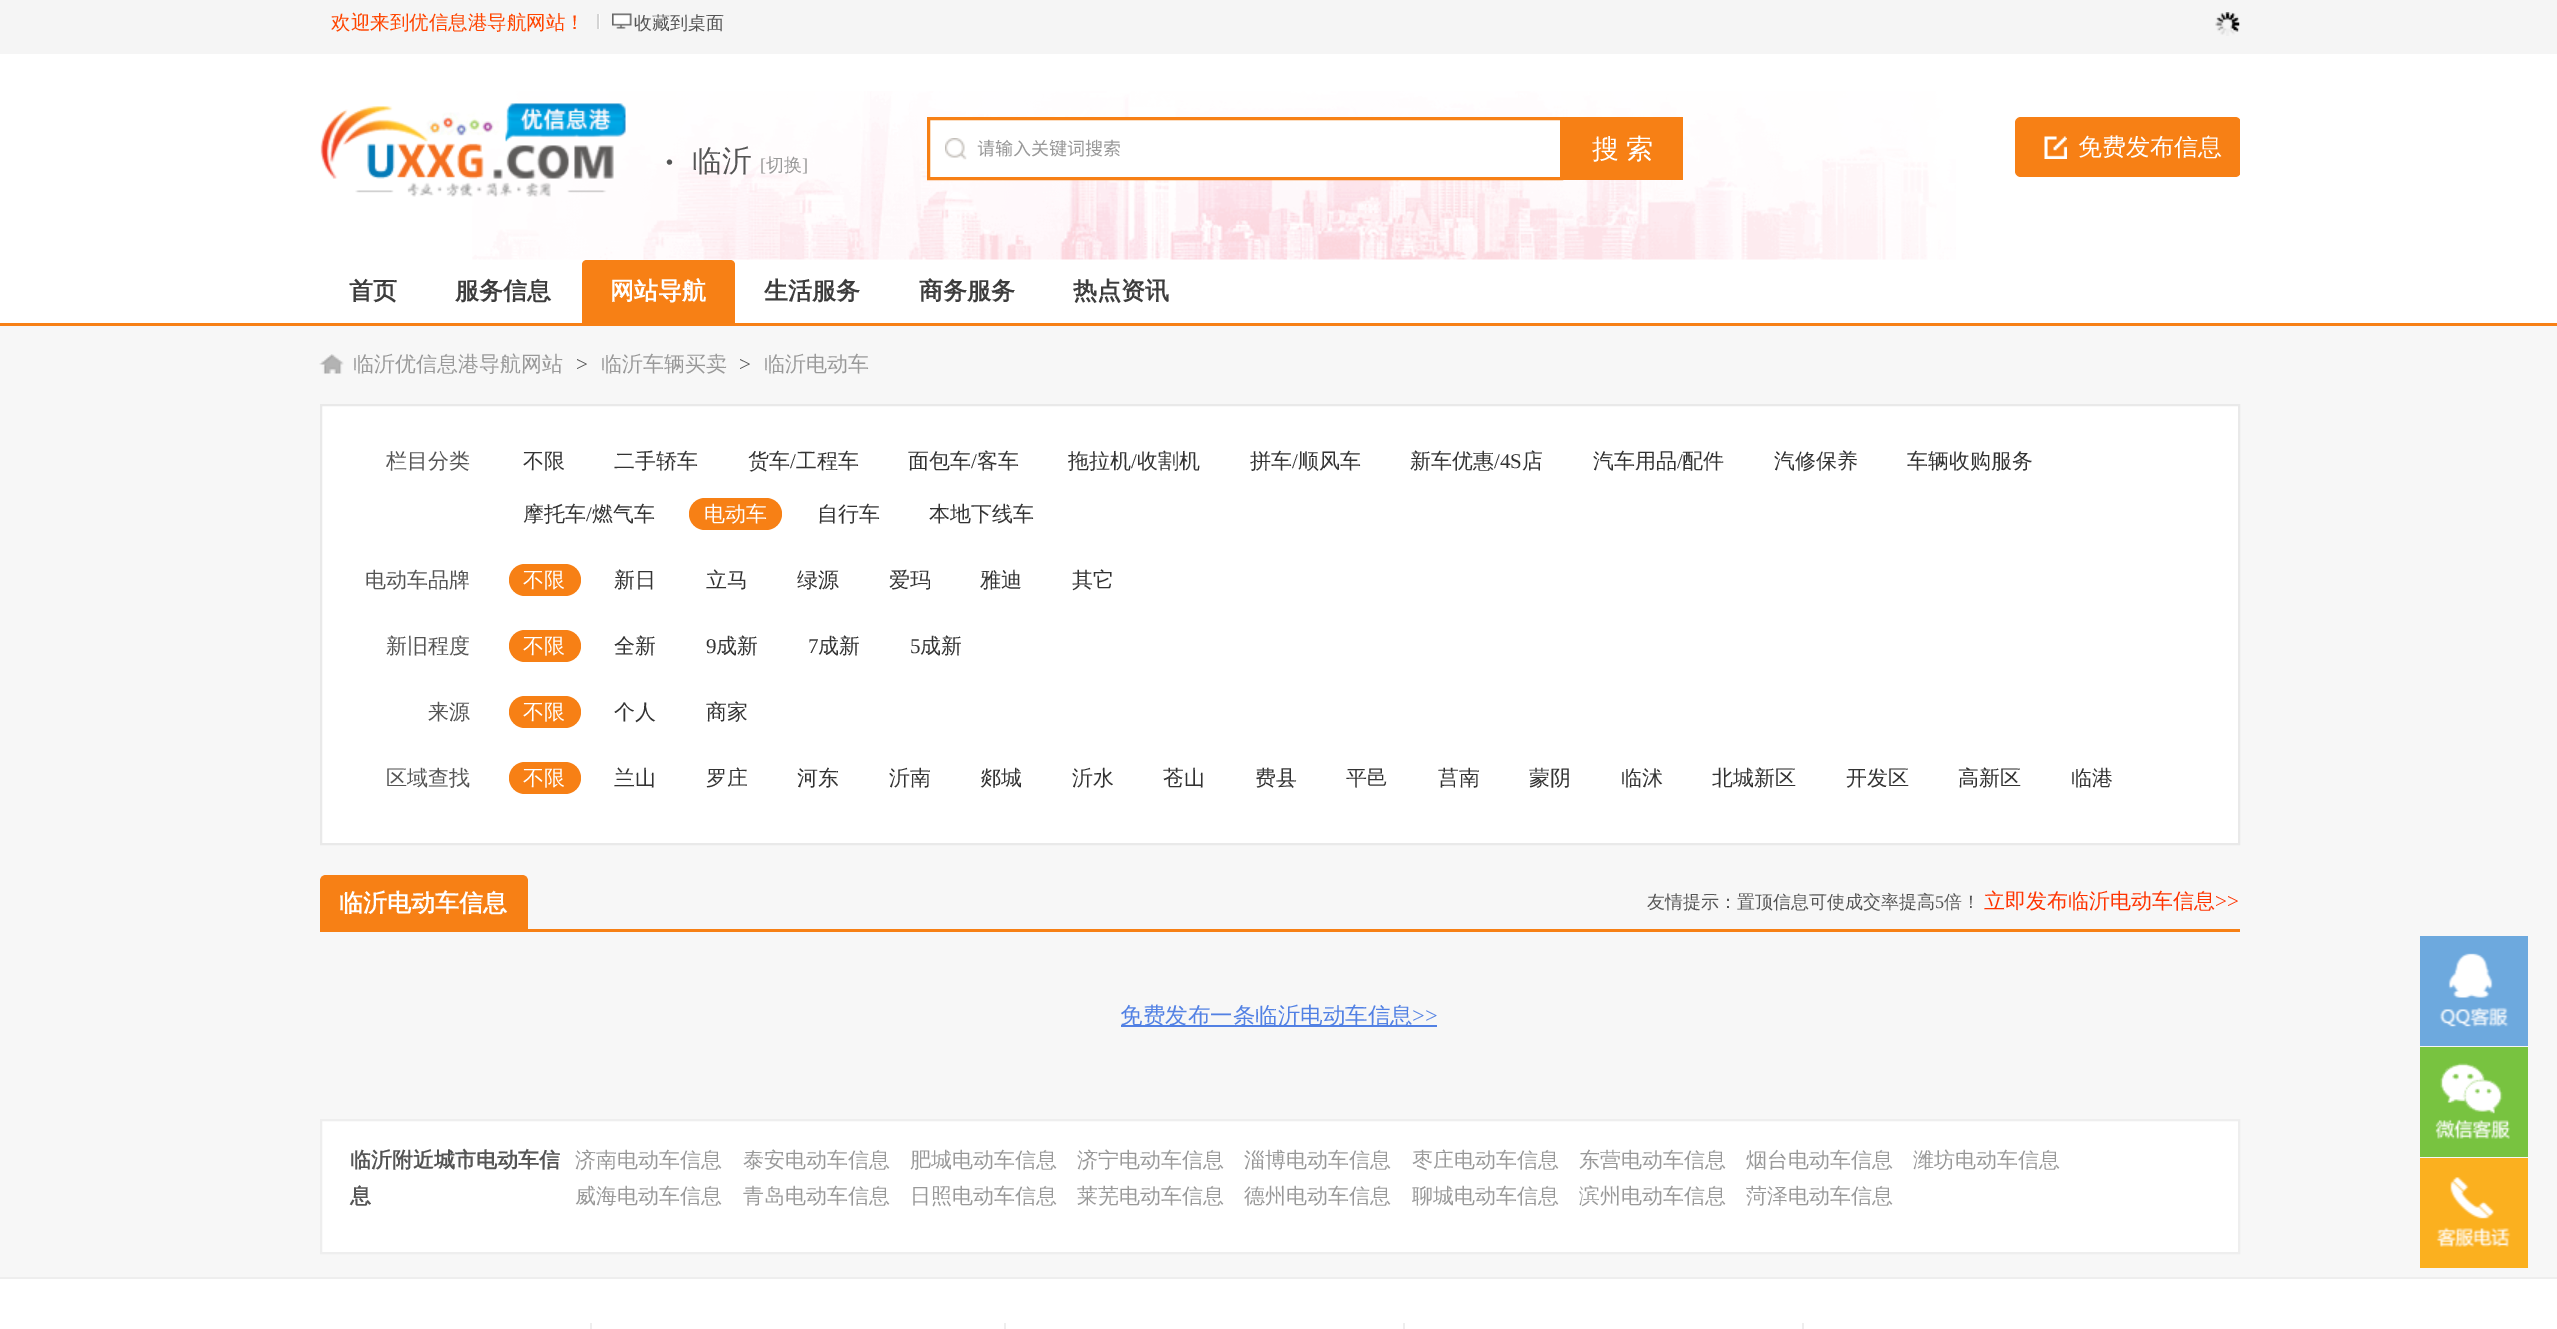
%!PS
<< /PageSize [2557 1329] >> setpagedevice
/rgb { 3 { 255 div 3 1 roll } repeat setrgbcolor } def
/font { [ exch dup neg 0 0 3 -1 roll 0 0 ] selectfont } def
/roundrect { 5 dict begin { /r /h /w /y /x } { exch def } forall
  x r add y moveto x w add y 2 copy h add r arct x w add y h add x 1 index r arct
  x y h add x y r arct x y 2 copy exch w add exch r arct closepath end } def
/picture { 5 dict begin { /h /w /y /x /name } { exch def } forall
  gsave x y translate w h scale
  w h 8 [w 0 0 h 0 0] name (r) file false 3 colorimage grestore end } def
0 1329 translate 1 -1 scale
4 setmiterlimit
255 255 255 rgb
0 0 2557 1329 rectfill
(img/1.rgb) 472 91 1484 169 picture
[
  [0 0 2557 54 245 245 245]
  [599 14 1 15 255 255 255]
  [597 14 2 15 212 212 212]
] { aload pop rgb rectfill } forall
(img/2.rgb) 612 13 20 16 picture
(img/3.rgb) 2215 12 25 24 picture
(img/4.rgb) 320 103 306 94 picture
255 255 255 rgb
930 120 630 57 rectfill
(img/5.rgb) 945 138 22 22 picture
247 128 21 rgb
3 setlinewidth
928.5 118.5 633 60 rectstroke
1563 117 120 63 rectfill
gsave
320 80 1920 180 rectclip
2015 117 226 60 6 roundrect fill
grestore
(img/6.rgb) 2044 136 23 23 picture
0 323 2557 3 rectfill
587 260 moveto 730 260 lineto 733 260 735 262 735 265 curveto 735 323 lineto 582 323 lineto 582 265 lineto 582 262 584 260 587 260 curveto closepath fill
247 247 247 rgb
0 326 2557 951 rectfill
(img/7.rgb) 319 354 25 20 picture
255 255 255 rgb
321 405 moveto 2239 405 lineto 2239 844 lineto 321 844 lineto closepath gsave fill grestore
233 233 233 rgb
2 setlinewidth
stroke
247 128 21 rgb
689 498 93 32 16 roundrect fill
509 564 72 32 16 roundrect fill
509 630 72 32 16 roundrect fill
509 696 72 32 16 roundrect fill
509 762 72 32 16 roundrect fill
528 929 1712 3 rectfill
326 875 moveto 522 875 lineto 525.5 875 528 877.5 528 881 curveto 528 932 lineto 320 932 lineto 320 881 lineto 320 877.5 322.5 875 326 875 curveto closepath fill
82 129 228 rgb
1121 1025 316 2 rectfill
109 169 222 rgb
2420 936 108 110 rectfill
(img/8.rgb) 2439 953 70 74 picture
120 195 64 rgb
2420 1047 108 110 rectfill
(img/9.rgb) 2435 1063 75 76 picture
251 176 31 rgb
2420 1158 108 110 rectfill
(img/10.rgb) 2436 1177 75 70 picture
255 255 255 rgb
321 1120 moveto 2239 1120 lineto 2239 1253 lineto 321 1253 lineto closepath gsave fill grestore
238 238 238 rgb
stroke
[
  [0 1277 2557 2 238 238 238]
  [590 1323 2 6 238 238 238]
  [1004 1323 2 6 238 238 238]
  [1403 1323 2 6 238 238 238]
  [1802 1323 2 6 238 238 238]
] { aload pop rgb rectfill } forall
/WenQuanYiZenHei-Medium 19.5 font
255 69 0 rgb
331 29 moveto (欢迎来到优信息港导航网站！) show
/WenQuanYiZenHei-Medium 18 font
85 85 85 rgb
634 29 moveto (收藏到桌面) show
/LiberationSerif-Regular 45 font
662 177 moveto (·) show
/WenQuanYiZenHei-Medium 30 font
692 171 moveto (临沂) show
/LiberationSerif-Regular 18 font
153 153 153 rgb
760 171 moveto ([) show
/WenQuanYiZenHei-Medium 18 font
766 171 moveto (切换) show
/LiberationSerif-Regular 18 font
802 171 moveto (]) show
/NotoSansCJKSC-Regular 18 font
977 155 moveto (请输入关键词搜索) show
/WenQuanYiZenHei-Medium 27 font
255 255 255 rgb
1592 158 moveto -1 0 32 (搜 索) widthshow
/WenQuanYiZenHei-Medium 24 font
2078 155 moveto (免费发布信息) show
/WenQuanYiZenHei-Bold 24 font
61 61 61 rgb
349 299 moveto (首页) show
455 299 moveto (服务信息) show
255 255 255 rgb
610 299 moveto (网站导航) show
61 61 61 rgb
[
  [(生活服务) 764 299]
  [(商务服务) 919 299]
  [(热点资讯) 1073 299]
] { aload pop moveto show } forall
/WenQuanYiZenHei-Medium 21 font
153 153 153 rgb
353 371 moveto (临沂优信息港导航网站) show
/LiberationSerif-Regular 21 font
85 85 85 rgb
576 371 moveto (>) show
/WenQuanYiZenHei-Medium 21 font
153 153 153 rgb
601 371 moveto (临沂车辆买卖) show
/LiberationSerif-Regular 21 font
85 85 85 rgb
739 371 moveto (>) show
/WenQuanYiZenHei-Medium 21 font
153 153 153 rgb
764 371 moveto (临沂电动车) show
85 85 85 rgb
386 468 moveto (栏目分类) show
51 51 51 rgb
[
  [(不限) 523 468]
  [(二手轿车) 614 468]
  [(货车) 748 468]
] { aload pop moveto show } forall
/LiberationSerif-Regular 21 font
790 468 moveto (/) show
/WenQuanYiZenHei-Medium 21 font
796 468 moveto (工程车) show
908 468 moveto (面包车) show
/LiberationSerif-Regular 21 font
971 468 moveto (/) show
/WenQuanYiZenHei-Medium 21 font
977 468 moveto (客车) show
1068 468 moveto (拖拉机) show
/LiberationSerif-Regular 21 font
1131 468 moveto (/) show
/WenQuanYiZenHei-Medium 21 font
1137 468 moveto (收割机) show
1250 468 moveto (拼车) show
/LiberationSerif-Regular 21 font
1292 468 moveto (/) show
/WenQuanYiZenHei-Medium 21 font
1298 468 moveto (顺风车) show
1410 468 moveto (新车优惠) show
/LiberationSerif-Regular 21 font
1494 468 moveto (/4S) show
/WenQuanYiZenHei-Medium 21 font
1522 468 moveto (店) show
1593 468 moveto (汽车用品) show
/LiberationSerif-Regular 21 font
1677 468 moveto (/) show
/WenQuanYiZenHei-Medium 21 font
[
  [(配件) 1682 468]
  [(汽修保养) 1774 468]
  [(车辆收购服务) 1907 468]
  [(摩托车) 523 521]
] { aload pop moveto show } forall
/LiberationSerif-Regular 21 font
586 521 moveto (/) show
/WenQuanYiZenHei-Medium 21 font
592 521 moveto (燃气车) show
255 255 255 rgb
704 521 moveto (电动车) show
51 51 51 rgb
817 521 moveto (自行车) show
929 521 moveto (本地下线车) show
85 85 85 rgb
365 587 moveto (电动车品牌) show
255 255 255 rgb
523 587 moveto (不限) show
51 51 51 rgb
[
  [(新日) 614 587]
  [(立马) 706 587]
  [(绿源) 797 587]
  [(爱玛) 889 587]
  [(雅迪) 980 587]
  [(其它) 1072 587]
] { aload pop moveto show } forall
85 85 85 rgb
386 653 moveto (新旧程度) show
255 255 255 rgb
523 653 moveto (不限) show
51 51 51 rgb
614 653 moveto (全新) show
/LiberationSerif-Regular 21 font
706 653 moveto (9) show
/WenQuanYiZenHei-Medium 21 font
716 653 moveto (成新) show
/LiberationSerif-Regular 21 font
808 653 moveto (7) show
/WenQuanYiZenHei-Medium 21 font
818 653 moveto (成新) show
/LiberationSerif-Regular 21 font
910 653 moveto (5) show
/WenQuanYiZenHei-Medium 21 font
920 653 moveto (成新) show
85 85 85 rgb
428 719 moveto (来源) show
255 255 255 rgb
523 719 moveto (不限) show
51 51 51 rgb
614 719 moveto (个人) show
706 719 moveto (商家) show
85 85 85 rgb
386 785 moveto (区域查找) show
255 255 255 rgb
523 785 moveto (不限) show
51 51 51 rgb
[
  [(兰山) 614 785]
  [(罗庄) 706 785]
  [(河东) 797 785]
  [(沂南) 889 785]
  [(郯城) 980 785]
  [(沂水) 1072 785]
  [(苍山) 1163 785]
  [(费县) 1255 785]
  [(平邑) 1346 785]
  [(莒南) 1438 785]
  [(蒙阴) 1529 785]
  [(临沭) 1621 785]
  [(北城新区) 1712 785]
  [(开发区) 1846 785]
  [(高新区) 1958 785]
  [(临港) 2071 785]
] { aload pop moveto show } forall
/WenQuanYiZenHei-Bold 24 font
255 255 255 rgb
339 911 moveto (临沂电动车信息) show
/WenQuanYiZenHei-Medium 18 font
85 85 85 rgb
1647 908 moveto (友情提示：置顶信息可使成交率提高) show
/LiberationSerif-Regular 18 font
1935 908 moveto (5) show
/WenQuanYiZenHei-Medium 18 font
1944 908 moveto (倍！) show
/WenQuanYiZenHei-Medium 21 font
255 51 0 rgb
1984 908 moveto (立即发布临沂电动车信息) show
/LiberationSerif-Regular 21 font
2215 908 moveto (>>) show
/WenQuanYiZenHei-Medium 22.5 font
82 129 228 rgb
1120 1023 moveto (免费发布一条临沂电动车信息) show
/LiberationSerif-Regular 22.5 font
1412 1023 moveto (>>) show
/WenQuanYiZenHei-Bold 21 font
85 85 85 rgb
350 1167 moveto (临沂附近城市电动车信) show
350 1203 moveto (息) show
/WenQuanYiZenHei-Medium 21 font
153 153 153 rgb
[
  [(济南电动车信息) 575 1167]
  [(泰安电动车信息) 743 1167]
  [(肥城电动车信息) 910 1167]
  [(济宁电动车信息) 1077 1167]
  [(淄博电动车信息) 1244 1167]
  [(枣庄电动车信息) 1412 1167]
  [(东营电动车信息) 1579 1167]
  [(烟台电动车信息) 1746 1167]
  [(潍坊电动车信息) 1913 1167]
  [(威海电动车信息) 575 1203]
  [(青岛电动车信息) 743 1203]
  [(日照电动车信息) 910 1203]
  [(莱芜电动车信息) 1077 1203]
  [(德州电动车信息) 1244 1203]
  [(聊城电动车信息) 1412 1203]
  [(滨州电动车信息) 1579 1203]
  [(菏泽电动车信息) 1746 1203]
] { aload pop moveto show } forall
showpage
